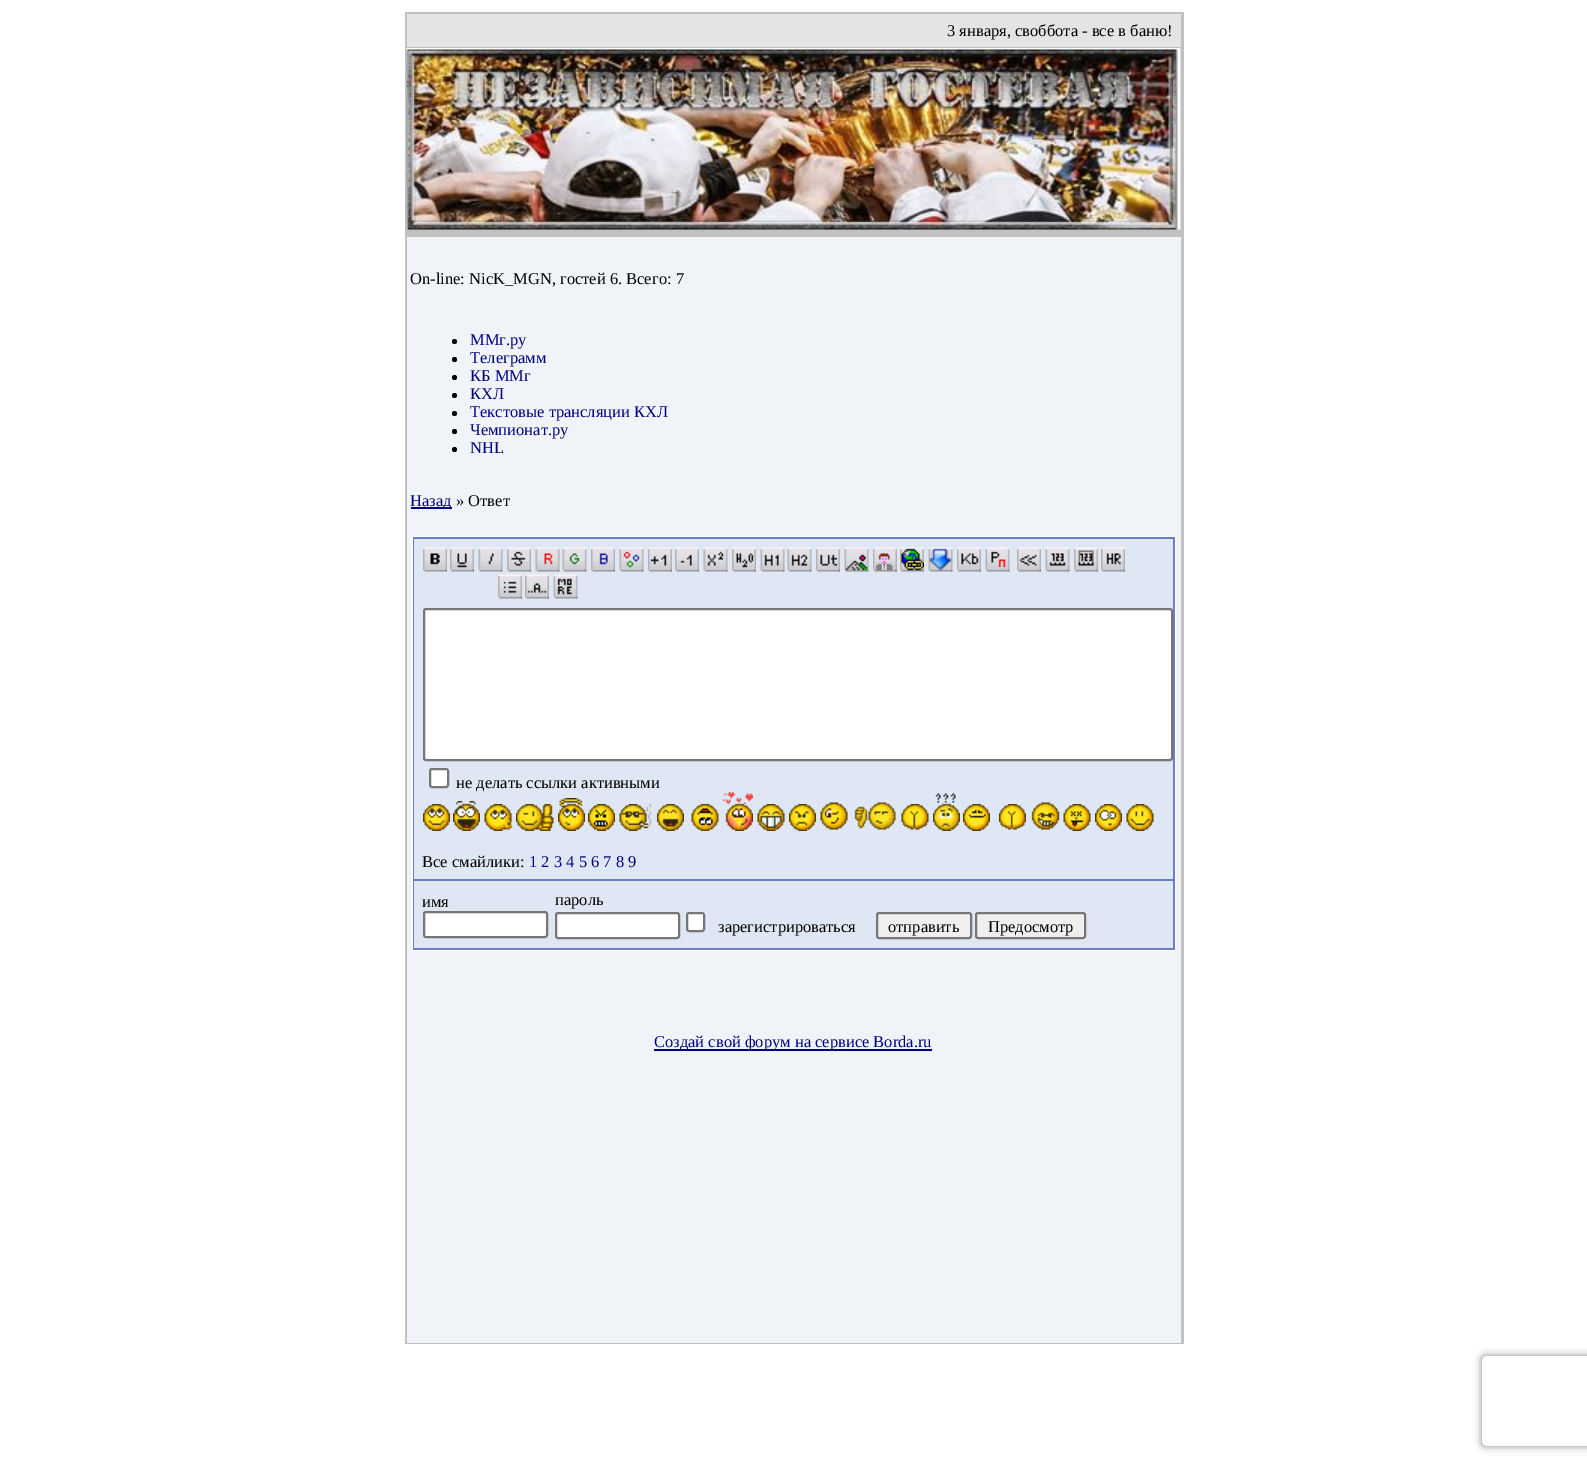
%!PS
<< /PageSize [1587 1467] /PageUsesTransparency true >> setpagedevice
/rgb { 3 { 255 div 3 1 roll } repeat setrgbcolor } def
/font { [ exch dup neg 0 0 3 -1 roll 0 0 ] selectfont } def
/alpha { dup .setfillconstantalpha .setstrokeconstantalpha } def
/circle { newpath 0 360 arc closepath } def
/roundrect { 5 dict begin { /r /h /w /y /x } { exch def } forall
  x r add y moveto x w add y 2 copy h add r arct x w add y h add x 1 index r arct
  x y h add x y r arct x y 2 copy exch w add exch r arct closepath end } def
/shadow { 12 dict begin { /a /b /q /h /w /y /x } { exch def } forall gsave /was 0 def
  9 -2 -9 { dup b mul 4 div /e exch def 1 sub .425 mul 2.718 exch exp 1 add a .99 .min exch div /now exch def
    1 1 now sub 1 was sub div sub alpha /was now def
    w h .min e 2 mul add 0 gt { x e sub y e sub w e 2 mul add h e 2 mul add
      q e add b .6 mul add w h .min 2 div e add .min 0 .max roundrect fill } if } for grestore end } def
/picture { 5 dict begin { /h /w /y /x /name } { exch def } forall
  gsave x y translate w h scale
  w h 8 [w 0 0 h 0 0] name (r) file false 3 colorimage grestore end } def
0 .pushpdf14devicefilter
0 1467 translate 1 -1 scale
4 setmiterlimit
255 255 255 rgb
0 0 1587 1467 rectfill
193 193 193 rgb
405 12 779 1332 rectfill
228 228 228 rgb
407 14 774 33 rectfill
(img/1.rgb) 406 48 775 182 picture
240 244 248 rgb
407 237 774 1106 rectfill
0 0 0 rgb
454.5 341.5 2.5 circle fill
454.5 359.5 2.5 circle fill
454.5 377.5 2.5 circle fill
454.5 395.5 2.5 circle fill
454.5 413.5 2.5 circle fill
454.5 431.5 2.5 circle fill
454.5 449.5 2.5 circle fill
[
  [411 507 41 2 0 0 128]
  [411 536 765 415 255 255 255]
  [413 537 762 413 104 127 193]
  [414 539 759 340 222 231 243]
] { aload pop rgb rectfill } forall
(img/2.rgb) 423 547 24 25 picture
(img/3.rgb) 450 547 24 25 picture
(img/4.rgb) 478 547 25 25 picture
(img/5.rgb) 507 547 24 25 picture
(img/6.rgb) 535 547 25 25 picture
(img/7.rgb) 562 547 25 25 picture
(img/8.rgb) 591 547 24 25 picture
(img/9.rgb) 619 547 25 25 picture
(img/10.rgb) 648 547 24 25 picture
(img/11.rgb) 675 547 24 25 picture
(img/12.rgb) 703 547 25 25 picture
(img/13.rgb) 732 547 24 25 picture
(img/14.rgb) 760 547 25 25 picture
(img/15.rgb) 787 547 25 25 picture
(img/16.rgb) 816 547 24 25 picture
(img/17.rgb) 844 547 25 25 picture
(img/18.rgb) 873 547 24 25 picture
(img/19.rgb) 900 547 24 25 picture
(img/20.rgb) 928 547 25 25 picture
(img/21.rgb) 957 547 24 25 picture
(img/22.rgb) 985 547 25 25 picture
(img/23.rgb) 1017 547 24 25 picture
(img/24.rgb) 1045 547 25 25 picture
(img/25.rgb) 1074 547 24 25 picture
(img/26.rgb) 1101 547 24 25 picture
(img/27.rgb) 498 574 24 25 picture
(img/28.rgb) 525 574 24 25 picture
(img/29.rgb) 553 574 25 25 picture
255 255 255 rgb
424 609 748 151 2 roundrect gsave fill grestore
118 118 118 rgb
2 setlinewidth
stroke
255 255 255 rgb
430 769 18 18 2 roundrect gsave fill grestore
118 118 118 rgb
stroke
(img/30.rgb) 423 804 27 27 picture
(img/31.rgb) 453 801 27 30 picture
(img/32.rgb) 484 804 28 27 picture
(img/33.rgb) 516 804 38 27 picture
(img/34.rgb) 558 798 27 33 picture
(img/35.rgb) 588 804 27 27 picture
(img/36.rgb) 619 804 34 27 picture
(img/37.rgb) 657 804 27 27 picture
(img/38.rgb) 691 804 28 27 picture
(img/39.rgb) 723 792 30 39 picture
(img/40.rgb) 757 804 28 27 picture
(img/41.rgb) 789 804 27 27 picture
(img/42.rgb) 820 802 28 28 picture
(img/43.rgb) 854 802 42 28 picture
(img/44.rgb) 901 804 28 26 picture
(img/45.rgb) 933 793 27 38 picture
(img/46.rgb) 963 804 27 27 picture
(img/47.rgb) 999 804 27 26 picture
(img/48.rgb) 1031 802 29 28 picture
(img/49.rgb) 1063 804 28 27 picture
(img/50.rgb) 1095 804 27 27 picture
(img/51.rgb) 1126 804 28 27 picture
222 231 243 rgb
414 881 759 67 rectfill
255 255 255 rgb
424 912 123 25 2 roundrect gsave fill grestore
118 118 118 rgb
stroke
255 255 255 rgb
556 913 123 25 2 roundrect gsave fill grestore
118 118 118 rgb
stroke
255 255 255 rgb
687 913 17 18 2 roundrect gsave fill grestore
118 118 118 rgb
stroke
239 239 239 rgb
877 913 94 25 2 roundrect gsave fill grestore
118 118 118 rgb
stroke
239 239 239 rgb
976 913 109 25 2 roundrect gsave fill grestore
118 118 118 rgb
stroke
0 0 128 rgb
654 1049 278 2 rectfill
gsave
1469 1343 moveto 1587 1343 lineto 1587 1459 lineto 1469 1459 lineto closepath 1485 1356 moveto 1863 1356 lineto 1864.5 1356 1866 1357.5 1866 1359 curveto 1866 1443 lineto 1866 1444.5 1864.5 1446 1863 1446 curveto 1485 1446 lineto 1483.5 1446 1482 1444.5 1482 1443 curveto 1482 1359 lineto 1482 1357.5 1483.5 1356 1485 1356 curveto closepath eoclip newpath
128 128 128 rgb
1482 1356 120 90 3 4 1 shadow
grestore
/LiberationSerif-Regular 16.5 font
0 0 0 rgb
947 36 moveto (3 января, своббота - все в баню!) show
410 284 moveto (On-line: NicK_MGN, гостей 6. Всего: 7) show
0 0 128 rgb
[
  [(ММг.ру) 470 345]
  [(Телеграмм) 470 363]
  [(КБ ММг) 470 381]
  [(КХЛ) 470 399]
  [(Текстовые трансляции КХЛ) 470 417]
  [(Чемпионат.ру) 470 435]
  [(NHL) 470 453]
  [(Назад) 410 506]
] { aload pop moveto show } forall
0 0 0 rgb
[
  [(» Ответ) 456 506]
  [(не делать ссылки активными) 456 788]
  [(Все смайлики:) 422 867]
] { aload pop moveto show } forall
0 0 128 rgb
529 867 moveto (1 2 3 4 5 6 7 8 9) show
0 0 0 rgb
[
  [(имя) 422 907]
  [(пароль) 555 905]
  [(зарегистрироваться) 718 932]
  [(отправить) 888 932]
  [(Предосмотр) 988 932]
] { aload pop moveto show } forall
0 0 128 rgb
654 1047 moveto (Создай свой форум на сервисе Borda.ru) show
.poppdf14devicefilter showpage
